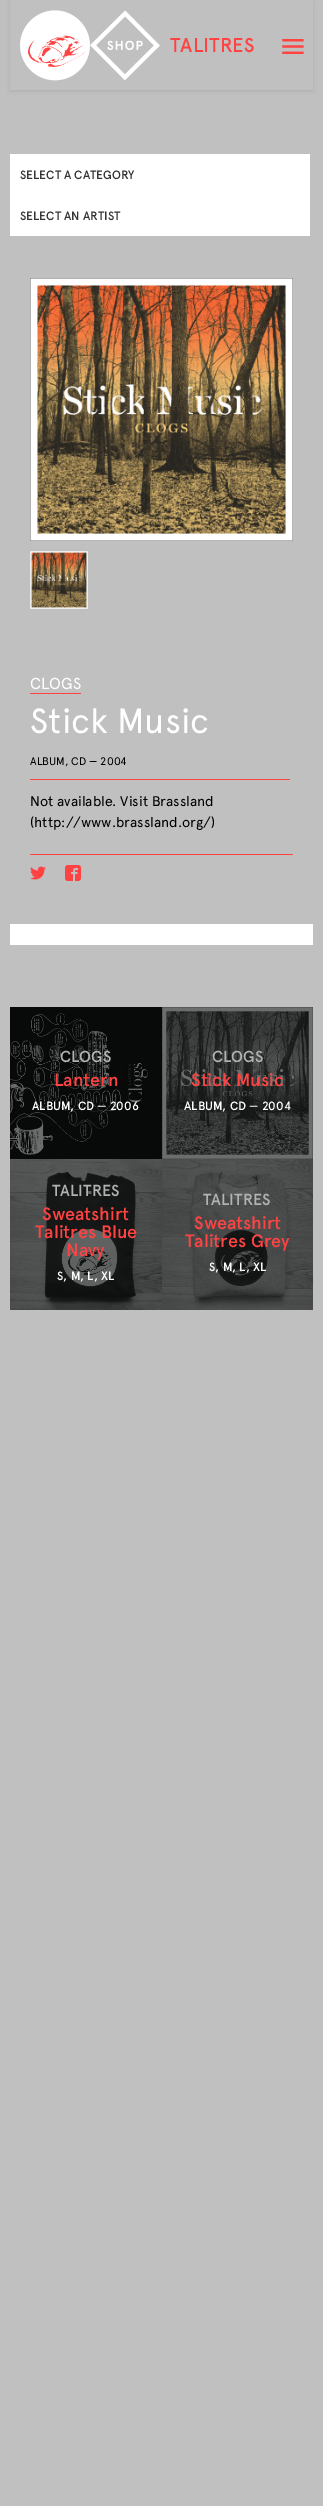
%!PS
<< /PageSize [323 2506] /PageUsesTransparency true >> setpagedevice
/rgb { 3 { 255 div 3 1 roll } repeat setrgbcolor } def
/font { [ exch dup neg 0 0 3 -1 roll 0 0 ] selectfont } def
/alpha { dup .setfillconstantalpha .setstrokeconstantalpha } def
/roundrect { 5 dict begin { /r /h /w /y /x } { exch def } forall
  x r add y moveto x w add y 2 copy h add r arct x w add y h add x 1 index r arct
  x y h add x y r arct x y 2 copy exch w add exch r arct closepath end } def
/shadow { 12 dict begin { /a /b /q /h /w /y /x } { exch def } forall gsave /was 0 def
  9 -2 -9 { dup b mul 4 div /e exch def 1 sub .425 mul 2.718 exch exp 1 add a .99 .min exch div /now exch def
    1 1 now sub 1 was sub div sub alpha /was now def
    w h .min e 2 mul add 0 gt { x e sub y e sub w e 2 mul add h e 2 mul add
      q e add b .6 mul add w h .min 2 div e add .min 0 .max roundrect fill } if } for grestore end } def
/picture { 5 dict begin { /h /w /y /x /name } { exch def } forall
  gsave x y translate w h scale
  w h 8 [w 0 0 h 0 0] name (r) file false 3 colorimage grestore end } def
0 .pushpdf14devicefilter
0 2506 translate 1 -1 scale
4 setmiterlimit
192 192 192 rgb
0 0 323 2506 rectfill
gsave
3 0 moveto 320 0 lineto 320 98 lineto 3 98 lineto closepath 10 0 moveto 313 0 lineto 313 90 lineto 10 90 lineto closepath eoclip newpath
0 0 0 rgb
10 1 303 90 0 2 0.1 shadow
grestore
255 67 67 rgb
89 45 moveto 89 64 74 79 55 79 curveto 36 79 21 64 21 45 curveto 21 27 36 11 55 11 curveto 74 11 89 27 89 45 curveto closepath fill
(img/1.rgb) 20 10 70 71 picture
(img/2.rgb) 90 10 70 71 picture
(img/3.rgb) 282 39 22 15 picture
255 255 255 rgb
10 154 300 82 rectfill
(img/4.rgb) 30 278 263 263 picture
(img/5.rgb) 30 551 58 58 picture
[
  [30 693 51 1 255 67 67]
  [30 779 260 1 255 67 67]
  [30 854 263 1 255 67 67]
] { aload pop rgb rectfill } forall
(img/6.rgb) 30 866 16 14 picture
(img/7.rgb) 65 865 16 16 picture
255 255 255 rgb
10 924 303 21 rectfill
(img/8.rgb) 10 1007 152 152 picture
(img/9.rgb) 162 1007 151 152 picture
(img/10.rgb) 10 1159 152 151 picture
(img/11.rgb) 162 1159 151 151 picture
/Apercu-Medium 20 font
255 67 67 rgb
170 52 moveto (TALITRES) show
/Apercu-Medium 12 font
51 51 51 rgb
20 179 moveto (SELECT A CATEGORY) show
20 220 moveto (SELECT AN ARTIST) show
/Apercu-Regular 16 font
255 255 255 rgb
30 689 moveto (CLOGS) show
/Apercu-Regular 35 font
30 733 moveto (Stick Music) show
/Apercu-Regular 11 font
0 0 0 rgb
30 765 moveto (ALBUM, CD — 2004) show
/Apercu-Regular 14 font
30 806 moveto (Not available. Visit Brassland) show
30 827 moveto (\(http://www.brassland.org/\)) show
/Apercu-Medium 16 font
178 178 178 rgb
60 1062 moveto (CLOGS) show
/Apercu-Medium 18 font
255 67 67 rgb
54 1086 moveto (Lantern) show
/Apercu-Medium 12 font
255 255 255 rgb
32 1110 moveto (ALBUM, CD — 2006) show
/Apercu-Medium 16 font
178 178 178 rgb
212 1062 moveto (CLOGS) show
/Apercu-Medium 18 font
255 67 67 rgb
191 1086 moveto (Stick Music) show
/Apercu-Medium 12 font
255 255 255 rgb
184 1110 moveto (ALBUM, CD — 2004) show
/Apercu-Medium 16 font
178 178 178 rgb
52 1196 moveto (TALITRES) show
/Apercu-Medium 18 font
255 67 67 rgb
[
  [(Sweatshirt) 42 1220]
  [(Talitres Blue) 35 1238]
  [(Navy) 66 1256]
] { aload pop moveto show } forall
/Apercu-Medium 12 font
255 255 255 rgb
57 1280 moveto (S, M, L, XL) show
/Apercu-Medium 16 font
178 178 178 rgb
203 1205 moveto (TALITRES) show
/Apercu-Medium 18 font
255 67 67 rgb
194 1229 moveto (Sweatshirt) show
185 1247 moveto (Talitres Grey) show
/Apercu-Medium 12 font
255 255 255 rgb
209 1271 moveto (S, M, L, XL) show
.poppdf14devicefilter showpage
